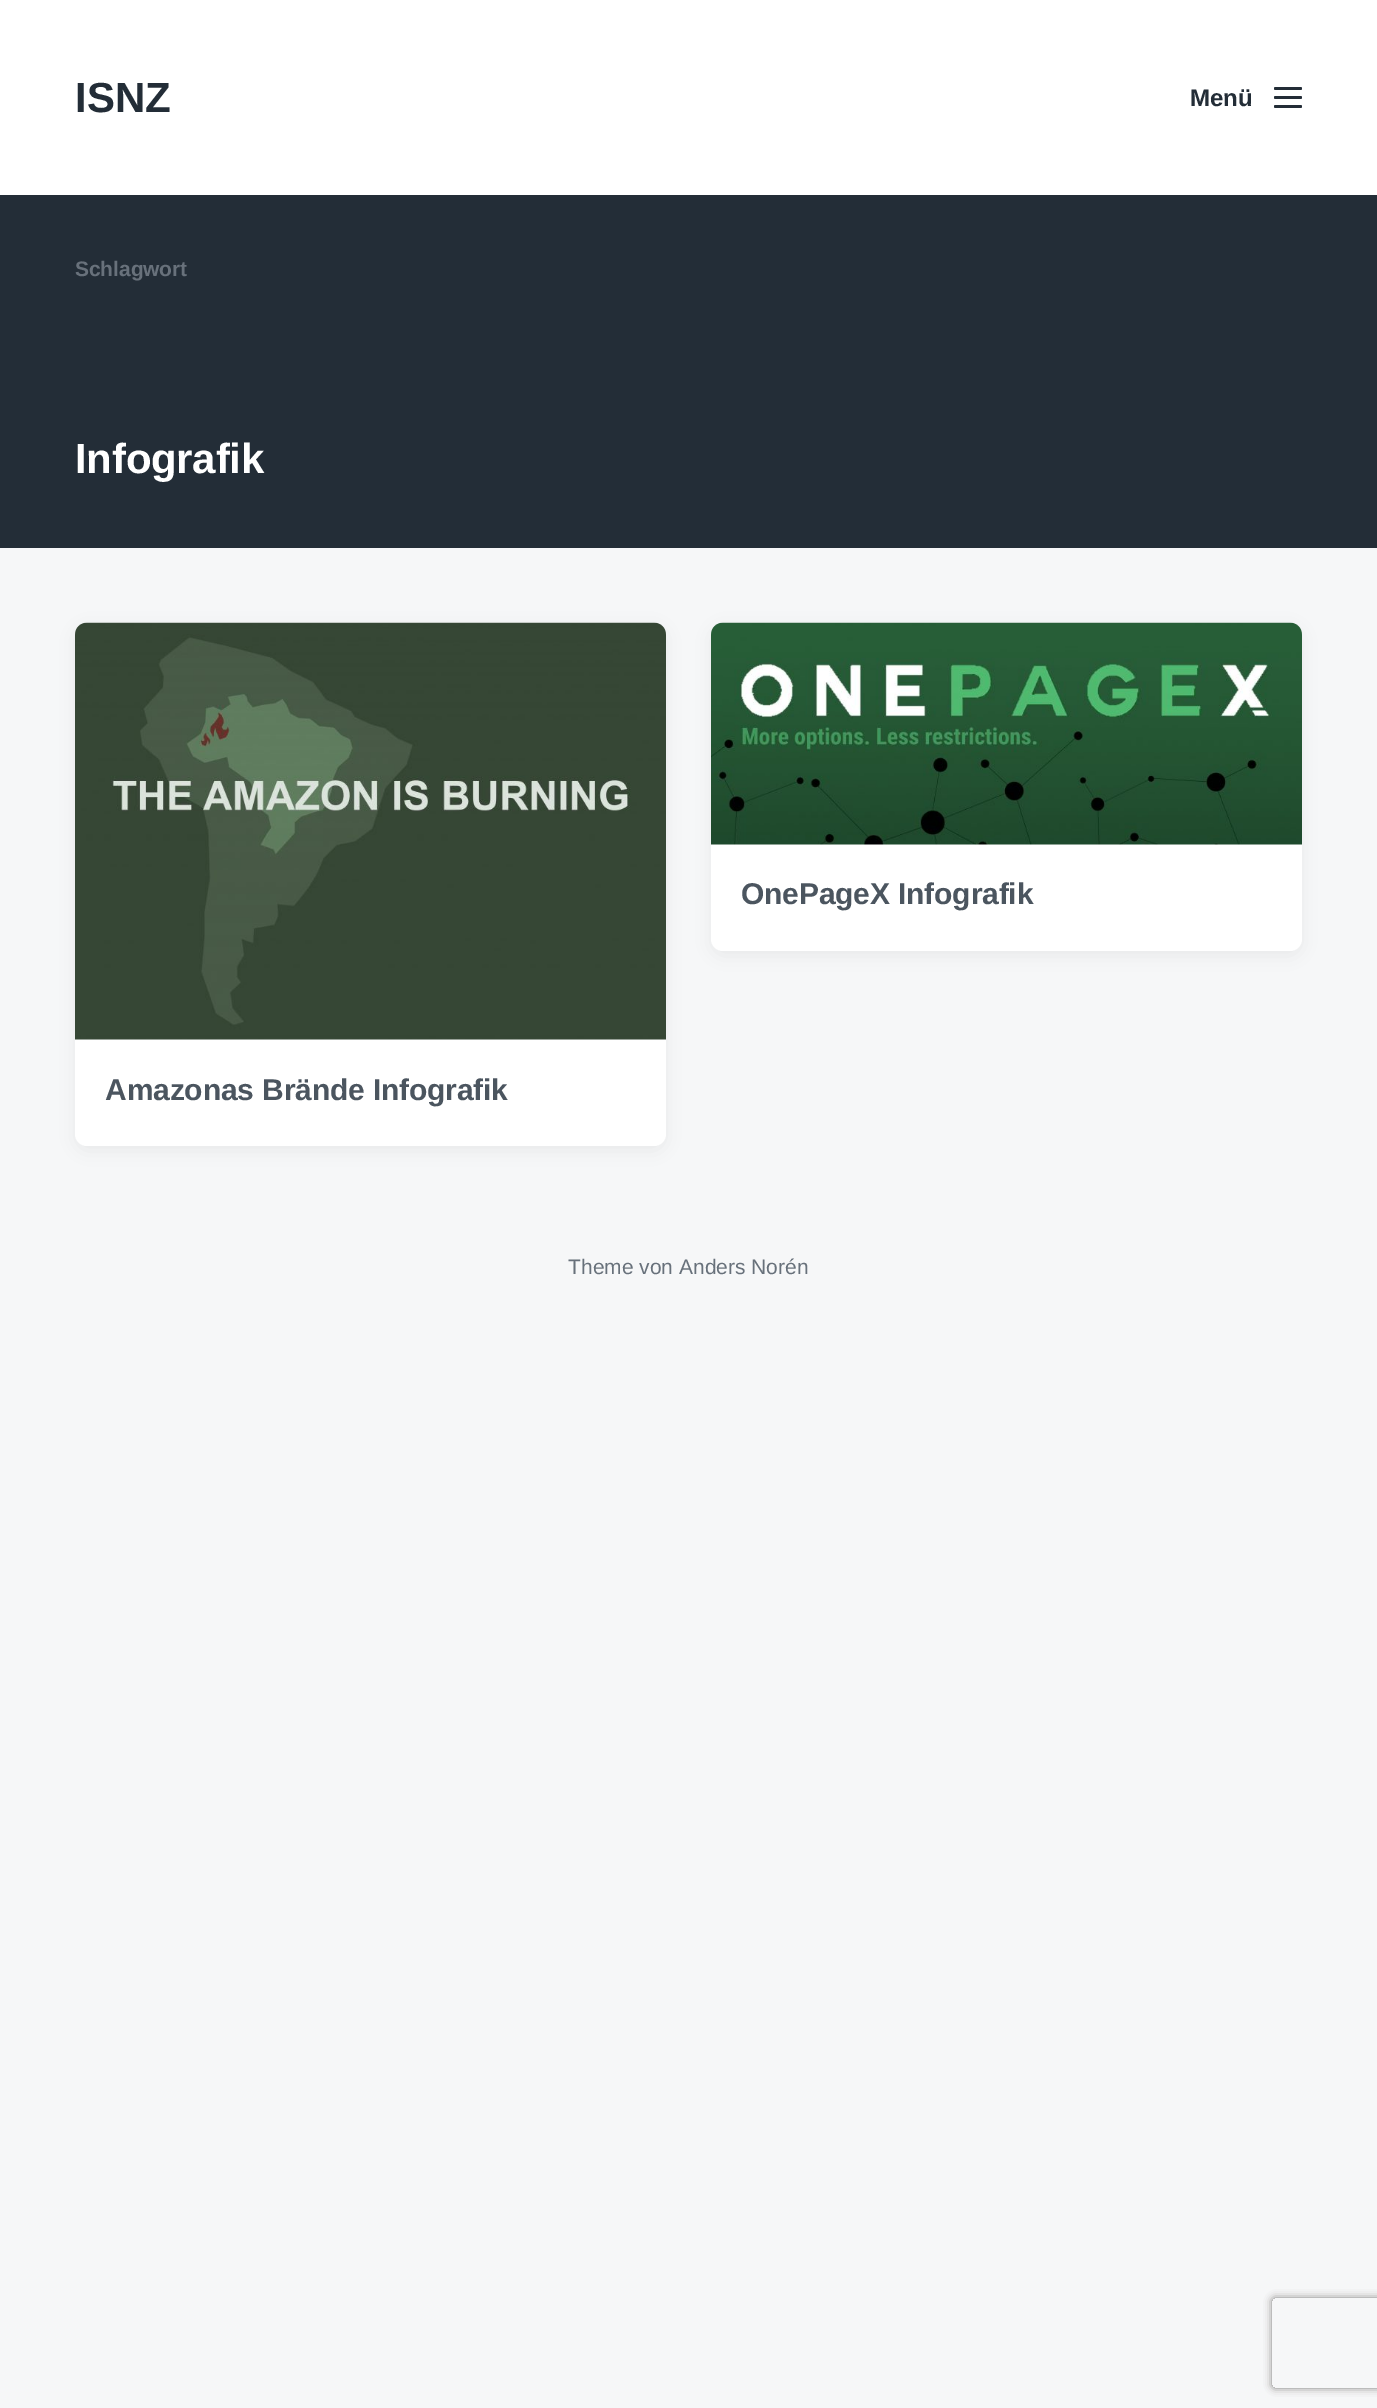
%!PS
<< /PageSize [1377 2408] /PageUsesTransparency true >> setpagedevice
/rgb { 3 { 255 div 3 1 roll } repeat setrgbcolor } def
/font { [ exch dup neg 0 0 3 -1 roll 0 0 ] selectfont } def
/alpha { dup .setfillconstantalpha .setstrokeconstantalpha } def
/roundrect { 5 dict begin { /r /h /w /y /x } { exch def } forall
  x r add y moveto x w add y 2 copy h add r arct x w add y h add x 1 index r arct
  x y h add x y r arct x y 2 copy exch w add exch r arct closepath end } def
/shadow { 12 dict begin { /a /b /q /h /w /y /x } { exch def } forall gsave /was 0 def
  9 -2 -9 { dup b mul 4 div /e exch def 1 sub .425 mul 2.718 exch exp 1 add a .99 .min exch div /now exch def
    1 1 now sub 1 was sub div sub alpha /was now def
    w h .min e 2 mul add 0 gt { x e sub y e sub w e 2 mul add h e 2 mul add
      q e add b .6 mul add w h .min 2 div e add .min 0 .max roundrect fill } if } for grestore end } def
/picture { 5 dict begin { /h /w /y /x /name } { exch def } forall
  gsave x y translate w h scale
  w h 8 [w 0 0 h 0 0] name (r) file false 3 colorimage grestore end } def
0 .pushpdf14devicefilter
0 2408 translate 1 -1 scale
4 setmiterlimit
246 247 248 rgb
0 0 1377 2408 rectfill
255 255 255 rgb
0 0 1377 195 rectfill
35 45 55 rgb
1274 87 28 3 1.5 roundrect fill
1274 96 28 3 1.5 roundrect fill
1274 105 28 3 1.5 roundrect fill
0 195 1377 353 rectfill
5 10 15 rgb
711 627 591 329 12 9 0.05 shadow
255 255 255 rgb
711 623 591 328 12 roundrect fill
(img/1.rgb) 711 622 591 223 picture
5 10 15 rgb
75 627 591 524 12 9 0.05 shadow
255 255 255 rgb
75 623 591 523 12 roundrect fill
(img/2.rgb) 75 622 591 418 picture
gsave
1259 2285 moveto 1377 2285 lineto 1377 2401 lineto 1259 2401 lineto closepath 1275 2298 moveto 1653 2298 lineto 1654.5 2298 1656 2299.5 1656 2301 curveto 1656 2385 lineto 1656 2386.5 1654.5 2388 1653 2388 curveto 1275 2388 lineto 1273.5 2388 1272 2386.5 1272 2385 curveto 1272 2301 lineto 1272 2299.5 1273.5 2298 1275 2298 curveto closepath eoclip newpath
128 128 128 rgb
1272 2298 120 90 3 4 1 shadow
grestore
/LiberationSans-Bold 42 font
35 45 55 rgb
75 112 moveto (ISNZ) show
/LiberationSans-Bold 24 font
1190 106 moveto (Menü) show
/LiberationSans-Bold 21 font
104 113 123 rgb
75 276 moveto -0.1 0 (Schlagwort) ashow
/LiberationSans-Bold 42 font
255 255 255 rgb
75 473 moveto -0.25 0 (Infografik) ashow
/LiberationSans-Bold 30 font
75 85 95 rgb
741 904 moveto -0.15 0 (OnePageX Infografik) ashow
105 1100 moveto -0.15 0 (Amazonas Brände Infografik) ashow
/LiberationSans-Regular 21 font
104 113 123 rgb
568 1274 moveto (Theme von Anders Norén) show
.poppdf14devicefilter showpage
